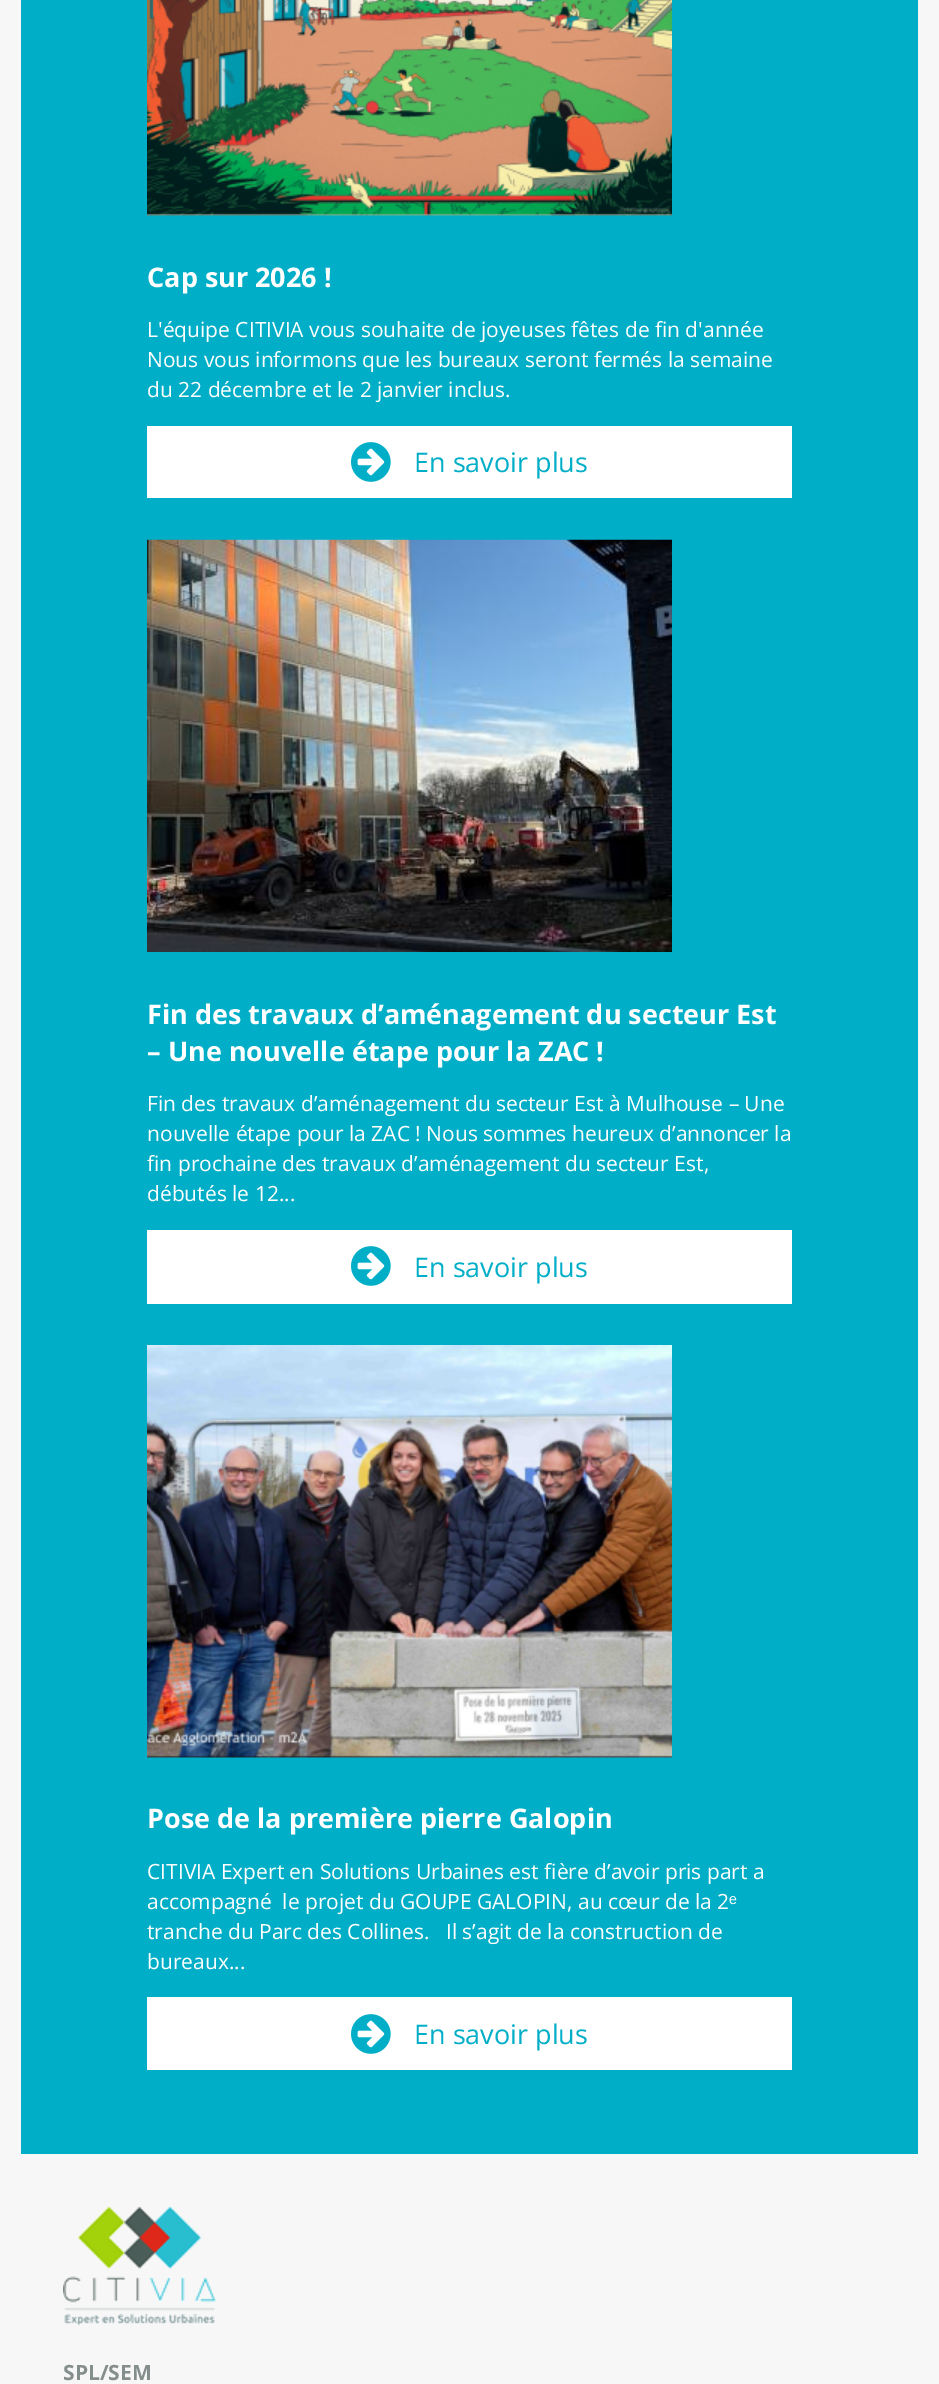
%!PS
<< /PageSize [939 2384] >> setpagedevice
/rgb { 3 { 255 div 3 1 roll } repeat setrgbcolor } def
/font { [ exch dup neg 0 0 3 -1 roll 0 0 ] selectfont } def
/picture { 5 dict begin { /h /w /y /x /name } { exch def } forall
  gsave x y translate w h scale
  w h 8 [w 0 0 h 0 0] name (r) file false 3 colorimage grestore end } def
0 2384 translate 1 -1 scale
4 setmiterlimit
247 247 247 rgb
0 0 939 2384 rectfill
0 174 199 rgb
21 0 897 2154 rectfill
(img/1.rgb) 147 0 525 216 picture
255 255 255 rgb
147 426 645 72 rectfill
(img/2.rgb) 351 442 40 40 picture
(img/3.rgb) 147 539 525 413 picture
147 1230 645 74 rectfill
(img/2.rgb) 351 1246 40 40 picture
(img/4.rgb) 147 1345 525 413 picture
147 1997 645 73 rectfill
(img/2.rgb) 351 2014 40 40 picture
(img/5.rgb) 63 2206 153 120 picture
/OpenSans-Bold 27 font
147 287 moveto (Cap sur 2026 !) show
/OpenSans-Regular 21 font
[
  [(L'équipe CITIVIA vous souhaite de joyeuses fêtes de fin d'année) 147 337]
  [(Nous vous informons que les bureaux seront fermés la semaine) 147 367]
  [(du 22 décembre et le 2 janvier inclus.) 147 397]
] { aload pop moveto show } forall
/OpenSans-Regular 27 font
0 174 199 rgb
414 472 moveto (En savoir plus) show
/OpenSans-Bold 27 font
255 255 255 rgb
147 1024 moveto (Fin des travaux d’aménagement du secteur Est) show
147 1061 moveto (– Une nouvelle étape pour la ZAC !) show
/OpenSans-Regular 21 font
[
  [(Fin des travaux d’aménagement du secteur Est à Mulhouse – Une) 147 1111]
  [(nouvelle étape pour la ZAC ! Nous sommes heureux d’annoncer la) 147 1141]
  [(fin prochaine des travaux d’aménagement du secteur Est,) 147 1171]
  [(débutés le 12...) 147 1201]
] { aload pop moveto show } forall
/OpenSans-Regular 27 font
0 174 199 rgb
414 1277 moveto (En savoir plus) show
/OpenSans-Bold 27 font
255 255 255 rgb
147 1828 moveto (Pose de la première pierre Galopin) show
/OpenSans-Regular 21 font
147 1879 moveto (CITIVIA Expert en Solutions Urbaines est fière d’avoir pris part a) show
147 1909 moveto (accompagné  le projet du GOUPE GALOPIN, au cœur de la 2) show
/LiberationSans-Regular 21 font
729 1909 moveto (ᵉ) show
/OpenSans-Regular 21 font
147 1939 moveto (tranche du Parc des Collines.   Il s’agit de la construction de) show
147 1969 moveto (bureaux...) show
/OpenSans-Regular 27 font
0 174 199 rgb
414 2044 moveto (En savoir plus) show
/OpenSans-Bold 21 font
132 142 140 rgb
63 2380 moveto (SPL/SEM) show
showpage
